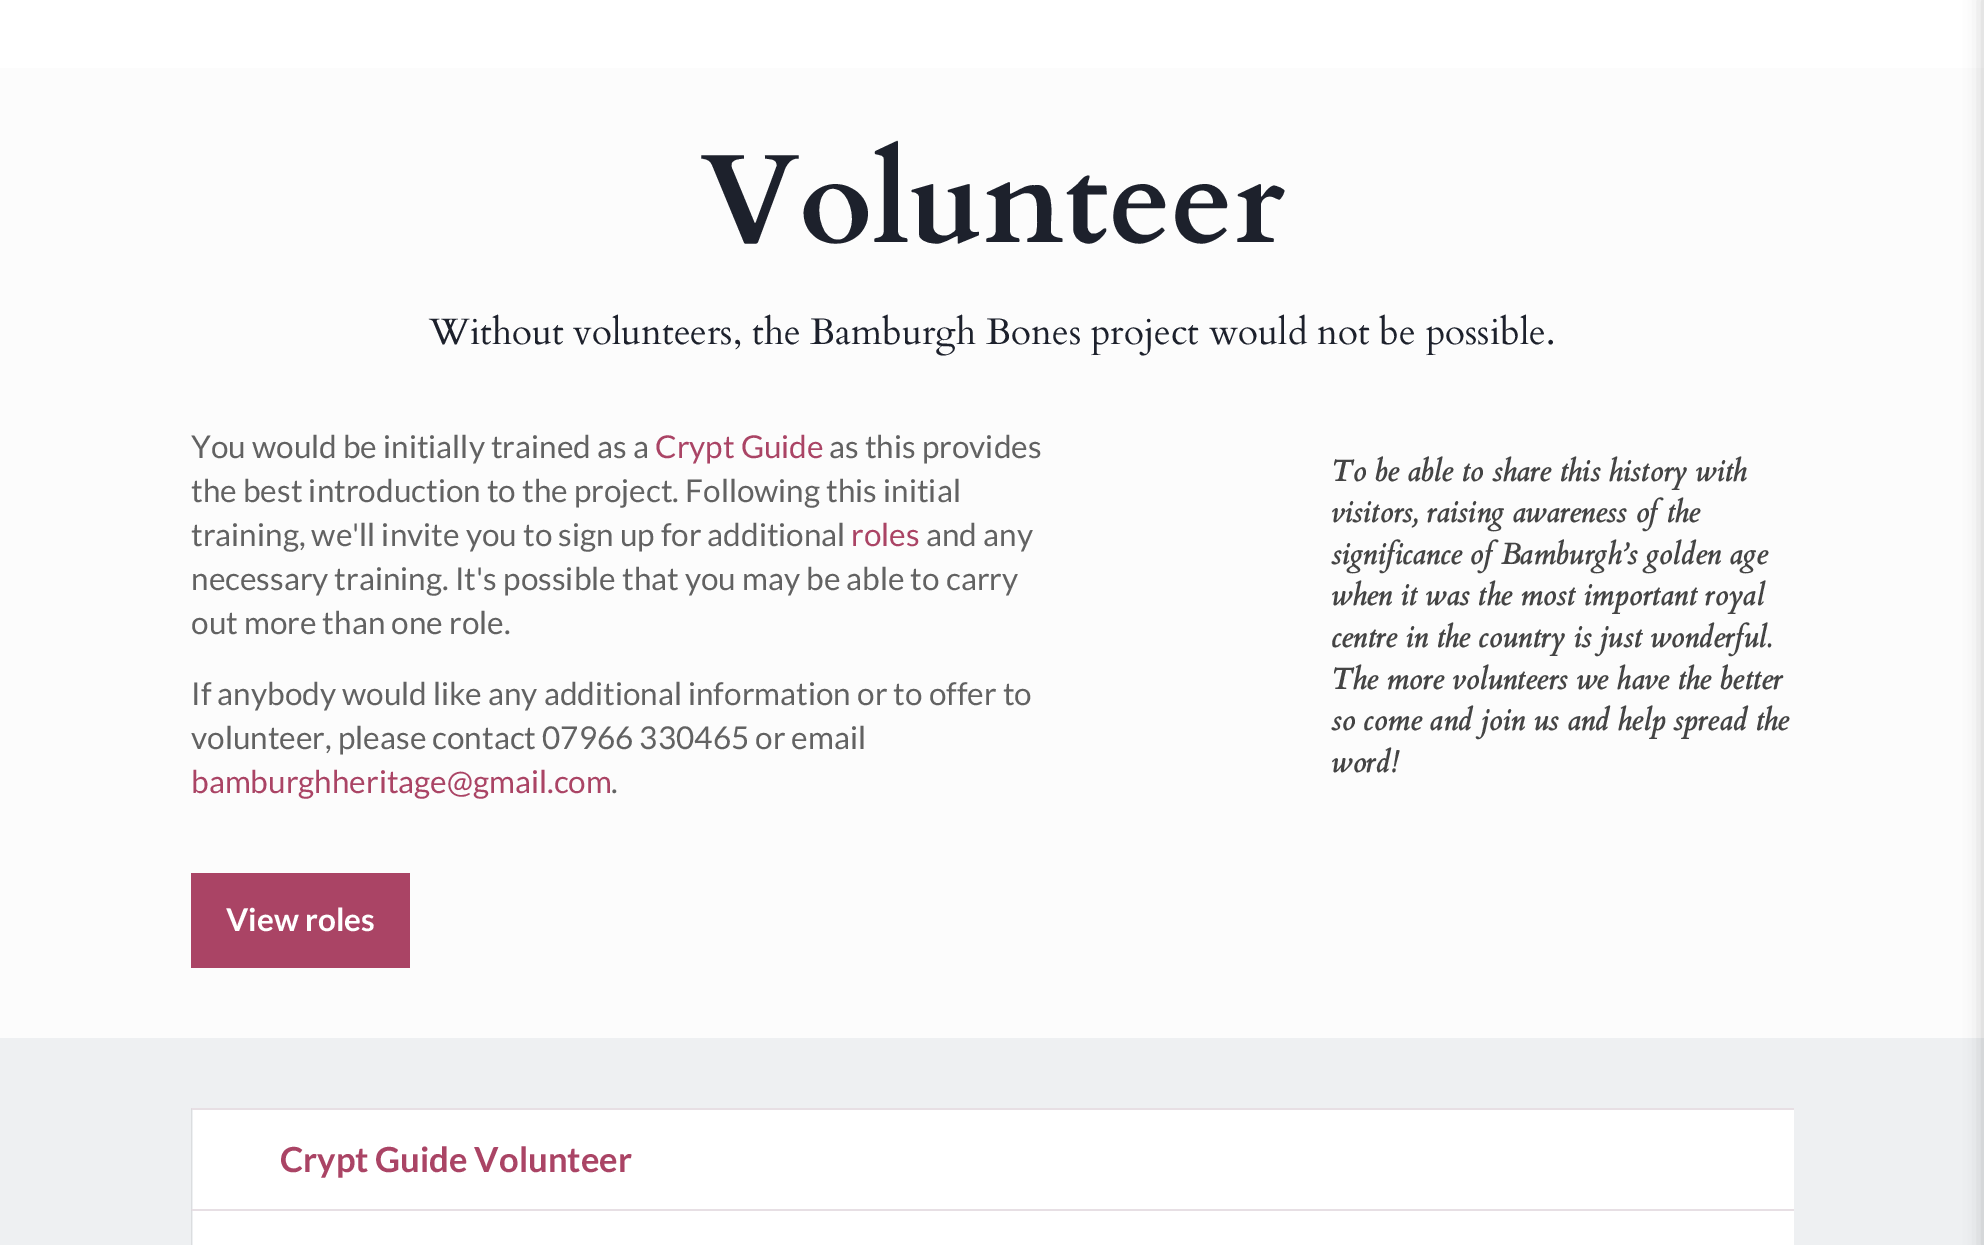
%!PS
<< /PageSize [1984 1245] /PageUsesTransparency true >> setpagedevice
/rgb { 3 { 255 div 3 1 roll } repeat setrgbcolor } def
/font { [ exch dup neg 0 0 3 -1 roll 0 0 ] selectfont } def
/alpha { dup .setfillconstantalpha .setstrokeconstantalpha } def
/roundrect { 5 dict begin { /r /h /w /y /x } { exch def } forall
  x r add y moveto x w add y 2 copy h add r arct x w add y h add x 1 index r arct
  x y h add x y r arct x y 2 copy exch w add exch r arct closepath end } def
/shadow { 12 dict begin { /a /b /q /h /w /y /x } { exch def } forall gsave /was 0 def
  9 -2 -9 { dup b mul 4 div /e exch def 1 sub .425 mul 2.718 exch exp 1 add a .99 .min exch div /now exch def
    1 1 now sub 1 was sub div sub alpha /was now def
    w h .min e 2 mul add 0 gt { x e sub y e sub w e 2 mul add h e 2 mul add
      q e add b .6 mul add w h .min 2 div e add .min 0 .max roundrect fill } if } for grestore end } def
0 .pushpdf14devicefilter
0 1245 translate 1 -1 scale
4 setmiterlimit
252 252 252 rgb
0 0 1984 1245 rectfill
[
  [0 0 1984 68 255 255 255]
  [191 873 219 95 170 68 101]
  [0 1038 1984 207 238 240 242]
] { aload pop rgb rectfill } forall
231 223 228 rgb
191 1108 moveto 1794 1108 lineto 1794 1110 lineto 192 1110 lineto closepath fill
0.08 alpha
0 0 0 rgb
191 1209 moveto 191 1108 lineto 192 1110 lineto 192 1209 lineto closepath fill
1 alpha
255 255 255 rgb
193 1110 1601 99 rectfill
231 223 228 rgb
191 1209 moveto 1794 1209 lineto 1794 1211 lineto 192 1211 lineto closepath fill
0.08 alpha
0 0 0 rgb
191 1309 moveto 191 1209 lineto 192 1211 lineto 192 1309 lineto closepath fill
1 alpha
255 255 255 rgb
193 1211 1601 34 rectfill
0 0 0 rgb
1983 -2 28 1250 0 9 0.2 shadow
/Cardo-Bold 126 font
29 33 44 rgb
701 242 moveto (Volunteer) show
/Cardo-Regular 36.75 font
429 344 moveto (Without volunteers, the Bamburgh Bones project would not be possible.) show
/Lato-Regular 31.5 font
98 98 98 rgb
191 458 moveto (You would be initially trained as a) show
170 68 101 rgb
655 458 moveto (Crypt Guide) show
98 98 98 rgb
[
  [(as this provides) 829 458]
  [(the best introduction to the project. Following this initial) 191 502]
  [(training, we'll invite you to sign up for additional) 191 546]
] { aload pop moveto show } forall
170 68 101 rgb
851 546 moveto (roles) show
98 98 98 rgb
[
  [(and any) 926 546]
  [(necessary training. It's possible that you may be able to carry) 191 590]
  [(out more than one role.) 191 634]
  [(If anybody would like any additional information or to offer to) 191 705]
  [(volunteer, please contact 07966 330465 or email) 191 749]
] { aload pop moveto show } forall
170 68 101 rgb
191 793 moveto (bamburghheritage@gmail.com) show
98 98 98 rgb
611 793 moveto (.) show
/Lato-Bold 31.5 font
255 255 255 rgb
226 931 moveto (View roles) show
/Cardo-BoldItalic 29.75 font
68 68 68 rgb
[
  [(To be able to share this history with) 1331 481]
  [(visitors, raising awareness of the) 1331 522]
  [(significance of Bamburgh’s golden age) 1331 564]
  [(when it was the most important royal) 1331 605]
  [(centre in the country is just wonderful.) 1331 647]
  [(The more volunteers we have the better) 1331 689]
  [(so come and join us and help spread the) 1331 730]
  [(word!) 1331 772]
] { aload pop moveto show } forall
/Lato-Bold 34.6 font
170 68 101 rgb
280 1172 moveto (Crypt Guide Volunteer) show
.poppdf14devicefilter showpage
